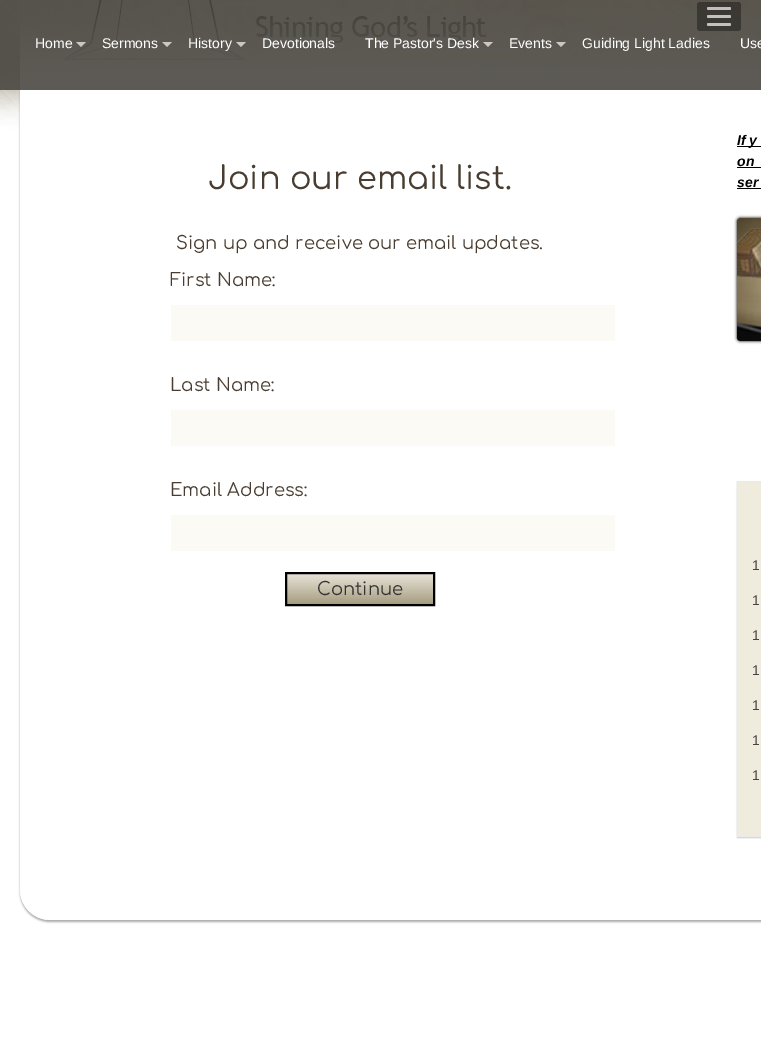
%!PS
<< /PageSize [761 1047] /PageUsesTransparency true >> setpagedevice
/rgb { 3 { 255 div 3 1 roll } repeat setrgbcolor } def
/font { [ exch dup neg 0 0 3 -1 roll 0 0 ] selectfont } def
/alpha { dup .setfillconstantalpha .setstrokeconstantalpha } def
/roundrect { 5 dict begin { /r /h /w /y /x } { exch def } forall
  x r add y moveto x w add y 2 copy h add r arct x w add y h add x 1 index r arct
  x y h add x y r arct x y 2 copy exch w add exch r arct closepath end } def
/shadow { 12 dict begin { /a /b /q /h /w /y /x } { exch def } forall gsave /was 0 def
  9 -2 -9 { dup b mul 4 div /e exch def 1 sub .425 mul 2.718 exch exp 1 add a .99 .min exch div /now exch def
    1 1 now sub 1 was sub div sub alpha /was now def
    w h .min e 2 mul add 0 gt { x e sub y e sub w e 2 mul add h e 2 mul add
      q e add b .6 mul add w h .min 2 div e add .min 0 .max roundrect fill } if } for grestore end } def
/picture { 5 dict begin { /h /w /y /x /name } { exch def } forall
  gsave x y translate w h scale
  w h 8 [w 0 0 h 0 0] name (r) file false 3 colorimage grestore end } def
0 .pushpdf14devicefilter
0 1047 translate 1 -1 scale
4 setmiterlimit
255 255 255 rgb
0 0 761 1047 rectfill
(img/1.rgb) 0 0 761 137 picture
(img/2.rgb) 63 0 424 60 picture
gsave
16 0 moveto 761 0 lineto 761 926 lineto 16 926 lineto closepath 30 -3 moveto 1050 -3 lineto 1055.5 -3 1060 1.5 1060 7 curveto 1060 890 lineto 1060 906.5 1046.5 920 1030 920 curveto 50 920 lineto 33.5 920 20 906.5 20 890 curveto 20 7 lineto 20 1.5 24.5 -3 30 -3 curveto closepath eoclip newpath
170 170 170 rgb
20 -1 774 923 30 1 1 shadow
grestore
(img/3.rgb) 20 9 741 911 picture
0.9 alpha
75 72 66 rgb
0 0 761 90 rectfill
0.35 alpha
0 0 0 rgb
697 2 44 29 3 roundrect fill
1 alpha
194 192 190 rgb
707 7 24 3 1.5 roundrect fill
194 193 190 rgb
707 15 24 3 1.5 roundrect fill
707 23 24 3 1.5 roundrect fill
205 198 194 rgb
76 42 moveto 86 42 lineto 81 47 lineto closepath fill
162 42 moveto 172 42 lineto 167 47 lineto closepath fill
236 42 moveto 246 42 lineto 241 47 lineto closepath fill
483 42 moveto 493 42 lineto 488 47 lineto closepath fill
556 42 moveto 566 42 lineto 561 47 lineto closepath fill
[
  [171 305 444 36 251 250 245]
  [171 410 444 36 251 250 245]
  [171 515 444 36 251 250 245]
] { aload pop rgb rectfill } forall
gsave 287 574 moveto 433 574 lineto 433 604 lineto 287 604 lineto closepath clip newpath
<< /ShadingType 2 /ColorSpace /DeviceRGB /Coords [360 574 360 604] /Extend [true true] /Function << /FunctionType 2 /Domain [0 1] /C0 [0.91 0.89 0.847] /C1 [0.651 0.616 0.502] /N 1 >> >> shfill grestore
0 0 0 rgb
2 setlinewidth
286 573 148 32 rectstroke
[
  [737 146 24 1 0 0 0]
  [737 167 24 1 0 0 0]
  [737 188 24 1 0 0 0]
] { aload pop rgb rectfill } forall
737 218 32 123 3 1.5 1 shadow
(img/4.rgb) 737 218 24 123 picture
(img/5.rgb) 737 228 24 51 picture
737 482 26 356 0 0.5 0.2 shadow
239 235 221 rgb
737.5 481.5 moveto 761.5 481.5 lineto 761.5 836.5 lineto 737.5 836.5 lineto closepath gsave fill grestore
234 234 234 rgb
1 setlinewidth
stroke
/LiberationSans-Regular 14 font
255 255 255 rgb
[
  [(Home) 35 48]
  [(Sermons) 102 48]
  [(History) 188 48]
  [(Devotionals) 262 48]
  [(The Pastor's Desk) 365 48]
  [(Events) 509 48]
  [(Guiding Light Ladies) 582 48]
  [(Use) 740 48]
] { aload pop moveto show } forall
/Comfortaa-Regular 32 font
73 61 49 rgb
208 189 moveto (Join our email list.) show
/Comfortaa-Regular 18 font
[
  [(Sign up and receive our email updates.) 176 249]
  [(First Name:) 170 286]
  [(Last Name:) 170 391]
  [(Email Address:) 170 496]
] { aload pop moveto show } forall
51 51 51 rgb
317 595 moveto (Continue) show
/LiberationSans-BoldItalic 14 font
0 0 0 rgb
[
  [(If y) 737 145]
  [(on) 737 166]
  [(ser) 737 187]
] { aload pop moveto show } forall
/LiberationSans-Regular 14 font
68 68 68 rgb
[
  [(1) 752 570]
  [(1) 752 605]
  [(1) 752 640]
  [(1) 752 675]
  [(1) 752 710]
  [(1) 752 745]
  [(1) 752 780]
] { aload pop moveto show } forall
.poppdf14devicefilter showpage
